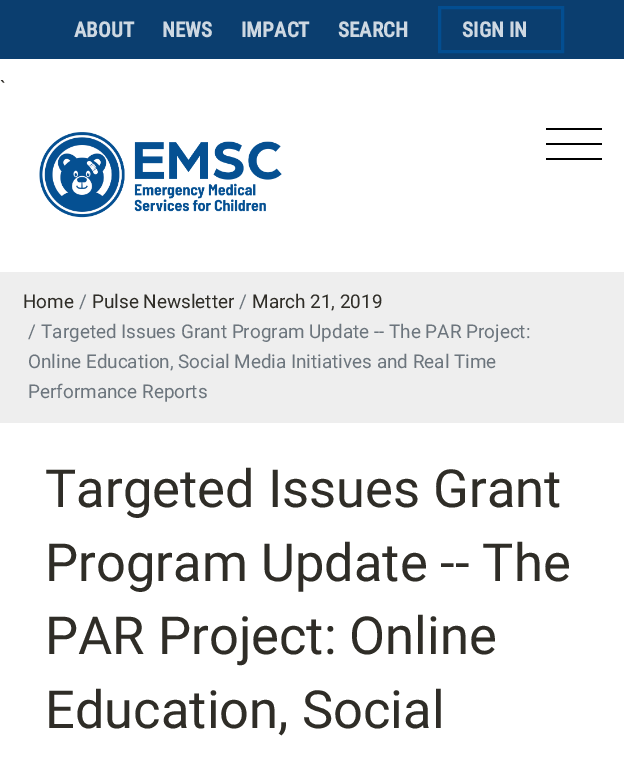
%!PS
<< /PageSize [624 770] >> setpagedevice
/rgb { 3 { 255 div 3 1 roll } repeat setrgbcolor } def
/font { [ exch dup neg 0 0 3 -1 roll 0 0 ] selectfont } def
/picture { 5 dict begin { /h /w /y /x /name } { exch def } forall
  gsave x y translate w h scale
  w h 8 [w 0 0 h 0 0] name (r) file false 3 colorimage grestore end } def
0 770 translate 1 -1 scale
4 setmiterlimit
255 255 255 rgb
0 0 624 770 rectfill
11 62 111 rgb
0 0 624 59 rectfill
3 78 145 rgb
3 setlinewidth
439.5 7.5 123 44 rectstroke
(img/1.rgb) 39 132 243 86 picture
[
  [546 128 56 2 0 0 0]
  [546 143 56 2 0 0 0]
  [546 158 56 2 0 0 0]
  [0 272 624 151 238 238 238]
] { aload pop rgb rectfill } forall
/RobotoCondensed-Bold 21 font
206 216 226 rgb
[
  [(ABOUT) 74 37]
  [(NEWS) 162 37]
  [(IMPACT) 241 37]
  [(SEARCH) 338 37]
  [(SIGN IN) 462 37]
] { aload pop moveto show } forall
/Roboto-Regular 20 font
47 45 39 rgb
0 95 moveto (`) show
/Roboto-Regular 18.9 font
23 308 moveto (Home) show
108 117 125 rgb
79 308 moveto (/) show
47 45 39 rgb
92 308 moveto (Pulse Newsletter) show
108 117 125 rgb
239 308 moveto (/) show
47 45 39 rgb
252 308 moveto (March 21, 2019) show
108 117 125 rgb
[
  [(/) 28 338]
  [(Targeted Issues Grant Program Update -- The PAR Project:) 41 338]
  [(Online Education, Social Media Initiatives and Real Time) 28 368]
  [(Performance Reports) 28 398]
] { aload pop moveto show } forall
/Roboto-Regular 52.5 font
47 45 39 rgb
[
  [(Targeted Issues Grant) 45 507]
  [(Program Update -- The) 45 581]
  [(PAR Project: Online) 45 654]
  [(Education, Social) 45 728]
] { aload pop moveto show } forall
showpage
